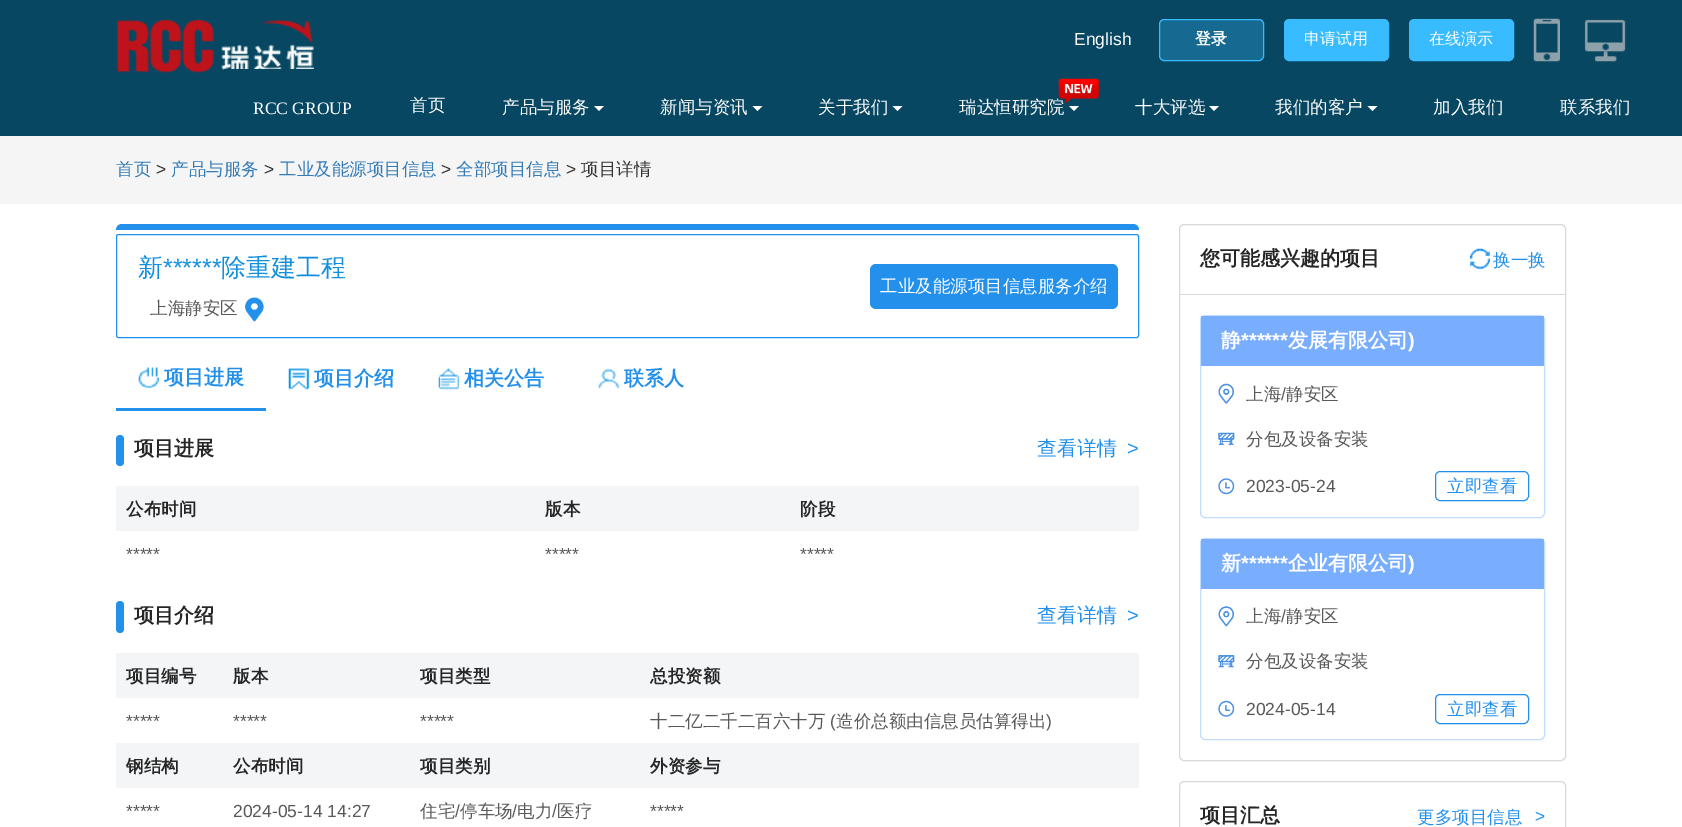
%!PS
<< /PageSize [1682 827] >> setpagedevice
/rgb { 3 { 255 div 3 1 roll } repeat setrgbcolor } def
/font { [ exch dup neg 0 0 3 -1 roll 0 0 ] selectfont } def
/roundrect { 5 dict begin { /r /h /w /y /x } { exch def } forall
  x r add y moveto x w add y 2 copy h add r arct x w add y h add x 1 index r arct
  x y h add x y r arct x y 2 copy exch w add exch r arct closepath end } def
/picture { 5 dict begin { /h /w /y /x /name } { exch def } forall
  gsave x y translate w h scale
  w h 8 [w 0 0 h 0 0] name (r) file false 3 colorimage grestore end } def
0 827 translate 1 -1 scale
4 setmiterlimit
255 255 255 rgb
0 0 1682 827 rectfill
7 71 98 rgb
0 0 1682 136 rectfill
(img/1.rgb) 117 19 197 54 picture
22 106 145 rgb
1159.5 19.5 104 41 4.5 roundrect gsave fill grestore
56 187 255 rgb
stroke
1284.5 19.5 104 41 4.5 roundrect gsave fill grestore
stroke
1409.5 19.5 104 41 4.5 roundrect gsave fill grestore
stroke
(img/2.rgb) 1533 18 27 44 picture
(img/3.rgb) 1584 19 42 43 picture
7 71 98 rgb
224 69 90 4 rectfill
255 255 255 rgb
594 106 moveto 604 106 lineto 599 111 lineto closepath fill
752.5 106 moveto 762.5 106 lineto 757.5 111 lineto closepath fill
892.5 106 moveto 902.5 106 lineto 897.5 111 lineto closepath fill
1069 106 moveto 1079 106 lineto 1074 111 lineto closepath fill
1209 106 moveto 1219 106 lineto 1214 111 lineto closepath fill
1367.5 106 moveto 1377.5 106 lineto 1372.5 111 lineto closepath fill
245 245 245 rgb
0 136 1682 68 rectfill
35 145 236 rgb
122 224 moveto 1133 224 lineto 1136.5 224 1139 226.5 1139 230 curveto 116 230 lineto 116 226.5 118.5 224 122 224 curveto closepath fill
116.5 234.5 1022 103 2 roundrect stroke
(img/5.rgb) 245 297 19 25 picture
870 264 248 45 6 roundrect fill
116 408 150 3 rectfill
(img/6.rgb) 138 367 21 21 picture
(img/7.rgb) 288 368 21 22 picture
(img/8.rgb) 438 368 21 22 picture
(img/9.rgb) 598 368 21 21 picture
116 435 8 31 4 roundrect fill
243 245 247 rgb
116 486 1023 45 rectfill
35 145 236 rgb
116 601 8 32 4 roundrect fill
243 245 247 rgb
116 653 1023 45 rectfill
116 743 1023 45 rectfill
217 217 217 rgb
1179.5 224.5 386 536 4.5 roundrect stroke
(img/10.rgb) 1470 248 20 21 picture
1180 294 385 1 rectfill
192 221 255 rgb
1200.5 315.5 344 202 4.5 roundrect stroke
121 174 255 rgb
1201 316 343 50 rectfill
(img/11.rgb) 1218 383 16 21 picture
(img/12.rgb) 1218 432 17 13 picture
(img/13.rgb) 1218 478 17 17 picture
35 145 236 rgb
1435.5 471.5 93 29 4.5 roundrect stroke
192 221 255 rgb
1200.5 538.5 344 201 4.5 roundrect stroke
121 174 255 rgb
1201 539 343 50 rectfill
(img/14.rgb) 1218 606 16 21 picture
(img/15.rgb) 1218 655 17 13 picture
(img/16.rgb) 1218 700 17 17 picture
35 145 236 rgb
1435.5 694.5 93 29 4.5 roundrect stroke
217 217 217 rgb
1179.5 781.5 386 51 4.5 roundrect stroke
/LiberationSans-Regular 17.5 font
255 255 255 rgb
1074 45 moveto (English) show
/WenQuanYiZenHei-Bold 16 font
1195 44 moveto (登录) show
/WenQuanYiZenHei-Medium 16 font
1304 44 moveto (申请试用) show
1429 44 moveto (在线演示) show
/LiberationSerif-Regular 17.5 font
253 114 moveto (RCC GROUP) show
/WenQuanYiZenHei-Medium 17.5 font
[
  [(首页) 410 111]
  [(产品与服务) 502 113]
  [(新闻与资讯) 660 113]
  [(关于我们) 818 113]
  [(瑞达恒研究院) 959 113]
] { aload pop moveto show } forall
(img/4.rgb) 1058 78 41 25 picture
[
  [(十大评选) 1135 113]
  [(我们的客户) 1275 113]
  [(加入我们) 1433 113]
  [(联系我们) 1560 113]
] { aload pop moveto show } forall
51 122 183 rgb
116 175 moveto (首页) show
/LiberationSans-Regular 17.5 font
51 51 51 rgb
156 175 moveto (>) show
/WenQuanYiZenHei-Medium 17.5 font
51 122 183 rgb
171 175 moveto (产品与服务) show
/LiberationSans-Regular 17.5 font
51 51 51 rgb
264 175 moveto (>) show
/WenQuanYiZenHei-Medium 17.5 font
51 122 183 rgb
279 175 moveto (工业及能源项目信息) show
/LiberationSans-Regular 17.5 font
51 51 51 rgb
441 175 moveto (>) show
/WenQuanYiZenHei-Medium 17.5 font
51 122 183 rgb
456 175 moveto (全部项目信息) show
/LiberationSans-Regular 17.5 font
51 51 51 rgb
566 175 moveto (>) show
/WenQuanYiZenHei-Medium 17.5 font
581 175 moveto (项目详情) show
/WenQuanYiZenHei-Medium 25 font
16 143 223 rgb
138 276 moveto (新) show
/LiberationSans-Regular 25 font
163 276 moveto (******) show
/WenQuanYiZenHei-Medium 25 font
221 276 moveto (除重建工程) show
/WenQuanYiZenHei-Medium 17.5 font
89 89 89 rgb
150 314 moveto (上海静安区) show
255 255 255 rgb
880 292 moveto (工业及能源项目信息服务介绍) show
/WenQuanYiZenHei-Bold 20 font
35 145 236 rgb
[
  [(项目进展) 164 384]
  [(项目介绍) 314 385]
  [(相关公告) 464 385]
  [(联系人) 624 385]
] { aload pop moveto show } forall
38 38 38 rgb
134 455 moveto (项目进展) show
/WenQuanYiZenHei-Medium 20 font
35 145 236 rgb
1037 455 moveto (查看详情) show
/LiberationSans-Regular 20 font
1127 455 moveto (>) show
/WenQuanYiZenHei-Bold 17.5 font
38 38 38 rgb
[
  [(公布时间) 126 515]
  [(版本) 545 515]
  [(阶段) 800 515]
] { aload pop moveto show } forall
/LiberationSans-Regular 17.5 font
89 89 89 rgb
[
  [(*****) 126 560]
  [(*****) 545 560]
  [(*****) 800 560]
] { aload pop moveto show } forall
/WenQuanYiZenHei-Bold 20 font
38 38 38 rgb
134 622 moveto (项目介绍) show
/WenQuanYiZenHei-Medium 20 font
35 145 236 rgb
1037 622 moveto (查看详情) show
/LiberationSans-Regular 20 font
1127 622 moveto (>) show
/WenQuanYiZenHei-Bold 17.5 font
38 38 38 rgb
[
  [(项目编号) 126 682]
  [(版本) 233 682]
  [(项目类型) 420 682]
  [(总投资额) 650 682]
] { aload pop moveto show } forall
/LiberationSans-Regular 17.5 font
89 89 89 rgb
[
  [(*****) 126 727]
  [(*****) 233 727]
  [(*****) 420 727]
] { aload pop moveto show } forall
/WenQuanYiZenHei-Medium 17.5 font
650 727 moveto (十二亿二千二百六十万) show
/LiberationSans-Regular 17.5 font
830 727 moveto (\() show
/WenQuanYiZenHei-Medium 17.5 font
836 727 moveto (造价总额由信息员估算得出) show
/LiberationSans-Regular 17.5 font
1046 727 moveto (\)) show
/WenQuanYiZenHei-Bold 17.5 font
38 38 38 rgb
[
  [(钢结构) 126 772]
  [(公布时间) 233 772]
  [(项目类别) 420 772]
  [(外资参与) 650 772]
] { aload pop moveto show } forall
/LiberationSans-Regular 17.5 font
89 89 89 rgb
126 817 moveto (*****) show
233 817 moveto (2024-05-14 14:27) show
/WenQuanYiZenHei-Medium 17.5 font
420 817 moveto (住宅) show
/LiberationSans-Regular 17.5 font
455 817 moveto (/) show
/WenQuanYiZenHei-Medium 17.5 font
460 817 moveto (停车场) show
/LiberationSans-Regular 17.5 font
512 817 moveto (/) show
/WenQuanYiZenHei-Medium 17.5 font
517 817 moveto (电力) show
/LiberationSans-Regular 17.5 font
552 817 moveto (/) show
/WenQuanYiZenHei-Medium 17.5 font
557 817 moveto (医疗) show
/LiberationSans-Regular 17.5 font
650 817 moveto (*****) show
/WenQuanYiZenHei-Bold 20 font
38 38 38 rgb
1200 265 moveto (您可能感兴趣的项目) show
/WenQuanYiZenHei-Medium 17.5 font
35 145 236 rgb
1493 266 moveto (换一换) show
/WenQuanYiZenHei-Bold 20 font
255 255 255 rgb
1221 347 moveto (静) show
/LiberationSans-Bold 20 font
1241 347 moveto (******) show
/WenQuanYiZenHei-Bold 20 font
1288 347 moveto (发展有限公司) show
/LiberationSans-Bold 20 font
1408 347 moveto (\)) show
/WenQuanYiZenHei-Medium 17.5 font
89 89 89 rgb
1246 400 moveto (上海) show
/LiberationSans-Regular 17.5 font
1281 400 moveto (/) show
/WenQuanYiZenHei-Medium 17.5 font
1286 400 moveto (静安区) show
1246 445 moveto (分包及设备安装) show
/LiberationSans-Regular 17.5 font
1246 492 moveto (2023-05-24) show
/WenQuanYiZenHei-Medium 17.5 font
35 145 236 rgb
1447 492 moveto (立即查看) show
/WenQuanYiZenHei-Bold 20 font
255 255 255 rgb
1221 570 moveto (新) show
/LiberationSans-Bold 20 font
1241 570 moveto (******) show
/WenQuanYiZenHei-Bold 20 font
1288 570 moveto (企业有限公司) show
/LiberationSans-Bold 20 font
1408 570 moveto (\)) show
/WenQuanYiZenHei-Medium 17.5 font
89 89 89 rgb
1246 622 moveto (上海) show
/LiberationSans-Regular 17.5 font
1281 622 moveto (/) show
/WenQuanYiZenHei-Medium 17.5 font
1286 622 moveto (静安区) show
1246 667 moveto (分包及设备安装) show
/LiberationSans-Regular 17.5 font
1246 715 moveto (2024-05-14) show
/WenQuanYiZenHei-Medium 17.5 font
35 145 236 rgb
1447 715 moveto (立即查看) show
/WenQuanYiZenHei-Bold 20 font
38 38 38 rgb
1200 822 moveto (项目汇总) show
/WenQuanYiZenHei-Medium 17.5 font
35 145 236 rgb
1417 823 moveto (更多项目信息) show
/LiberationSans-Regular 17.5 font
1535 822 moveto (>) show
showpage
